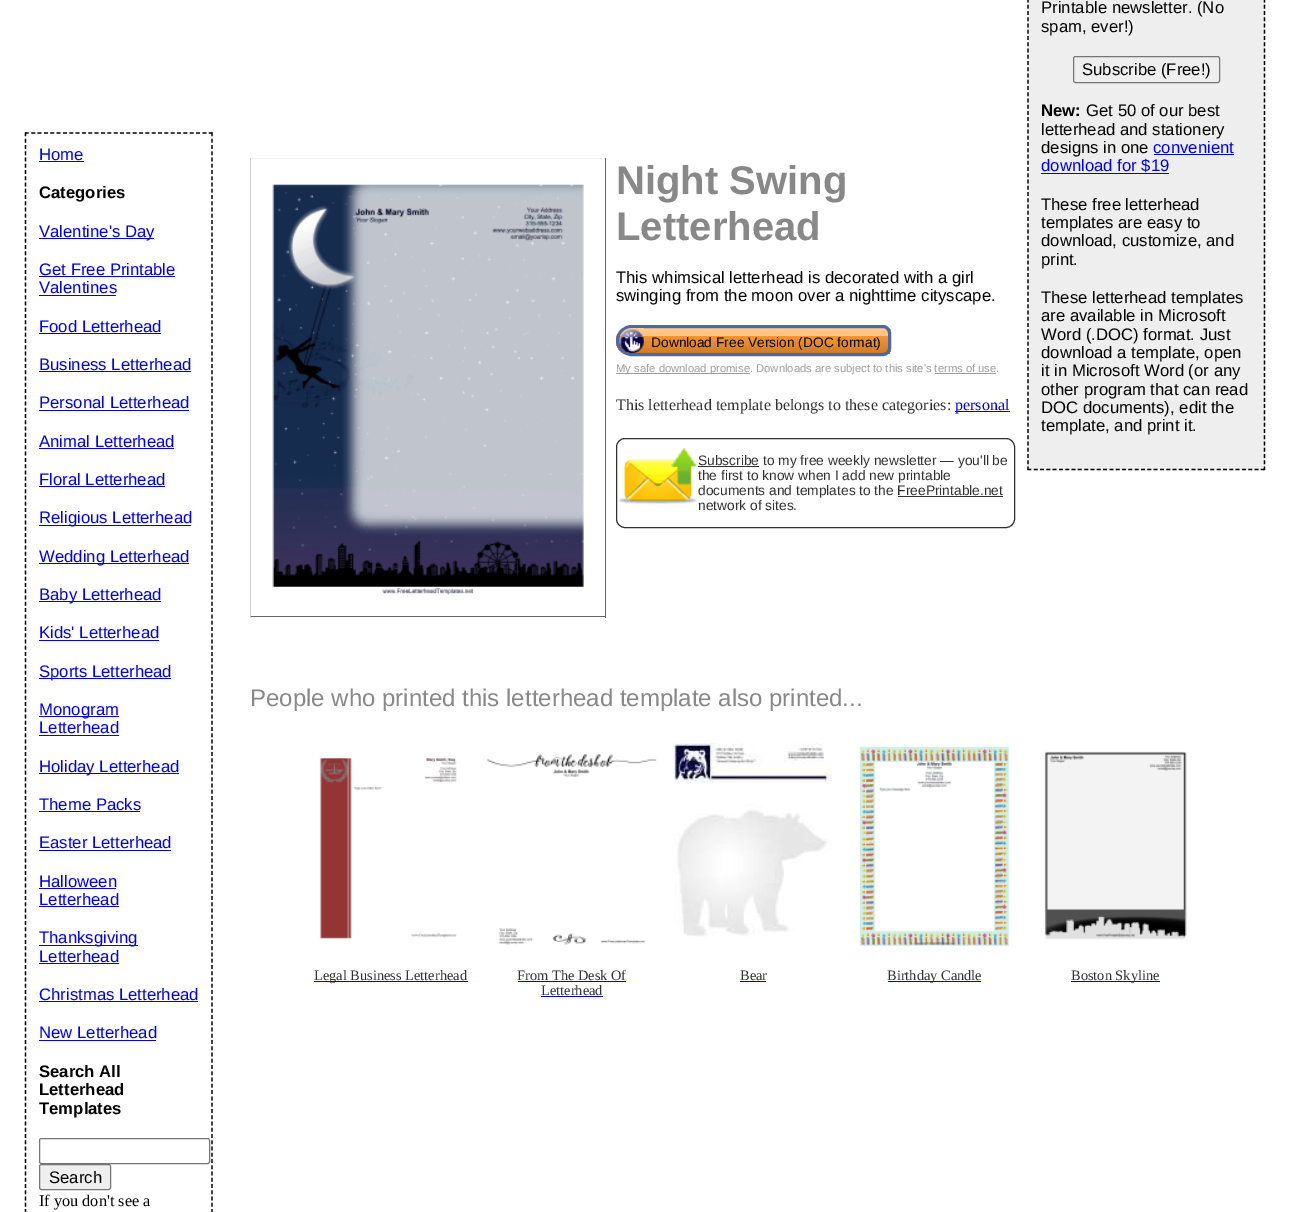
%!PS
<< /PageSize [1290 1212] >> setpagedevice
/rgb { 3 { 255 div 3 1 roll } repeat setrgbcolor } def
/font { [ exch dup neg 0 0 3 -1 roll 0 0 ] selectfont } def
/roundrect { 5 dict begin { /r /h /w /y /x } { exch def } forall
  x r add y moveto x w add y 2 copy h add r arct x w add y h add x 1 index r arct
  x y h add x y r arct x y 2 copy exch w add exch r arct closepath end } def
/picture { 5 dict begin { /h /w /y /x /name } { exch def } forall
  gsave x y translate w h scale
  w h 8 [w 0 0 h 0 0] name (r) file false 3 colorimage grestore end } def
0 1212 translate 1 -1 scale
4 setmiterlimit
255 255 255 rgb
0 0 1290 1212 rectfill
0 0 0 rgb
1.2 setlinewidth
[3.75 2.59] 0 setdash
25 133 moveto 212.5 133 lineto stroke
[3.75 2.51] 0 setdash
212 132.5 moveto 212 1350 lineto stroke
25.5 132.5 moveto 25.5 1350 lineto stroke
[
  [39 161 45 1 0 0 238]
  [39 238 115 1 0 0 238]
  [39 276 136 1 0 0 238]
  [39 295 77 1 0 0 238]
  [39 333 122 1 0 0 238]
  [39 371 152 1 0 0 238]
  [39 410 150 1 0 0 238]
  [39 448 135 1 0 0 238]
  [39 486 126 1 0 0 238]
  [39 525 152 1 0 0 238]
  [39 563 150 1 0 0 238]
  [39 601 122 1 0 0 238]
  [39 640 120 1 0 0 238]
  [39 678 132 1 0 0 238]
  [39 716 80 1 0 0 238]
  [39 735 80 1 0 0 238]
  [39 773 140 1 0 0 238]
  [39 811 101 1 0 0 238]
  [39 850 132 1 0 0 238]
  [39 888 77 1 0 0 238]
  [39 906 80 1 0 0 238]
  [39 945 99 1 0 0 238]
  [39 963 80 1 0 0 238]
  [39 1001 159 1 0 0 238]
  [39 1040 117 1 0 0 238]
] { aload pop rgb rectfill } forall
118 118 118 rgb
1 setlinewidth
[] 0 setdash
39.5 1138.5 170 25 2 roundrect stroke
239 239 239 rgb
39.5 1164.5 71 25 2 roundrect gsave fill grestore
118 118 118 rgb
stroke
238 238 238 rgb
1028 0 237 470 rectfill
0 0 0 rgb
1.2 setlinewidth
[3.75 2.49] 0 setdash
1264.5 -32.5 moveto 1264.5 470 lineto stroke
[3.75 2.56] 0 setdash
1027.5 469.5 moveto 1265 469.5 lineto stroke
[3.75 2.49] 0 setdash
1028 -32.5 moveto 1028 470 lineto stroke
118 118 118 rgb
1 setlinewidth
[] 0 setdash
1073.5 56.5 146 26 2 roundrect stroke
[
  [1154 154 80 1 0 0 238]
  [1041 173 128 1 0 0 238]
  [250 158 356 1 204 204 204]
  [605 158 1 460 102 102 102]
  [250 616 356 1 102 102 102]
  [250 158 1 460 204 204 204]
] { aload pop rgb rectfill } forall
(img/1.rgb) 251 158 354 437 picture
gsave
631.5 325 moveto 883 325 lineto 887.5 325 891 328.5 891 333 curveto 891 348 lineto 891 352.5 887.5 356 883 356 curveto 631.5 356 lineto 623 356 616 349 616 340.5 curveto 616 332 623 325 631.5 325 curveto closepath clip newpath
gsave 616 328 moveto 891 328 lineto 891 354 lineto 616 354 lineto closepath clip newpath
<< /ShadingType 2 /ColorSpace /DeviceRGB /Coords [754 328 754 354] /Extend [true true] /Function << /FunctionType 3 /Domain [0 1] /Functions [<< /FunctionType 2 /Domain [0 1] /C0 [1 0.816 0.62] /C1 [1 0.765 0.518] /N 1 >> << /FunctionType 2 /Domain [0 1] /C0 [1 0.765 0.518] /C1 [1 0.765 0.518] /N 1 >> << /FunctionType 2 /Domain [0 1] /C0 [1 0.765 0.518] /C1 [0.957 0.584 0.188] /N 1 >> << /FunctionType 2 /Domain [0 1] /C0 [0.957 0.584 0.188] /C1 [0.816 0.494 0.161] /N 1 >> << /FunctionType 2 /Domain [0 1] /C0 [0.816 0.494 0.161] /C1 [0.749 0.455 0.145] /N 1 >> << /FunctionType 2 /Domain [0 1] /C0 [0.749 0.455 0.145] /C1 [0.643 0.392 0.125] /N 1 >>] /Bounds [0.15 0.3 0.31 0.94 0.95] /Encode [0 1 0 1 0 1 0 1 0 1 0 1] >> >> shfill grestore
grestore
76 105 164 rgb
3 setlinewidth
631.5 326.5 moveto 883 326.5 lineto 886.5 326.5 889.5 329.5 889.5 333 curveto 889.5 348 lineto 889.5 351.5 886.5 354.5 883 354.5 curveto 631.5 354.5 lineto 624 354.5 617.5 348 617.5 340.5 curveto 617.5 333 624 326.5 631.5 326.5 curveto closepath stroke
(img/2.rgb) 620 328 24 26 picture
[
  [616 373 134 1 158 158 158]
  [935 373 61 1 158 158 158]
  [955 411 55 1 0 0 238]
] { aload pop rgb rectfill } forall
49 49 49 rgb
1 setlinewidth
616.5 438.5 398 89 8.5 roundrect stroke
(img/3.rgb) 618 447 80 58 picture
698 466 61 1 rectfill
898 496 105 1 rectfill
(img/4.rgb) 319 758 138 181 picture
0 0 238 rgb
314 981 154 1 rectfill
(img/5.rgb) 487 754 170 191 picture
518 981 108 1 rectfill
541 996 62 1 rectfill
(img/6.rgb) 673 743 160 194 picture
740 981 26 1 rectfill
(img/7.rgb) 859 746 150 200 picture
888 981 93 1 rectfill
(img/8.rgb) 1044 751 143 189 picture
1071 981 89 1 rectfill
/LiberationSans-Regular 16.7 font
39 160 moveto (Home) show
/LiberationSans-Bold 16.7 font
0 0 0 rgb
39 198 moveto (Categories) show
/LiberationSans-Regular 16.7 font
0 0 238 rgb
[
  [(Valentine's Day) 39 237]
  [(Get Free Printable) 39 275]
  [(Valentines) 39 293]
  [(Food Letterhead) 39 332]
  [(Business Letterhead) 39 370]
  [(Personal Letterhead) 39 408]
  [(Animal Letterhead) 39 447]
  [(Floral Letterhead) 39 485]
  [(Religious Letterhead) 39 523]
  [(Wedding Letterhead) 39 562]
  [(Baby Letterhead) 39 600]
  [(Kids' Letterhead) 39 638]
  [(Sports Letterhead) 39 677]
  [(Monogram) 39 715]
  [(Letterhead) 39 733]
  [(Holiday Letterhead) 39 772]
  [(Theme Packs) 39 810]
  [(Easter Letterhead) 39 848]
  [(Halloween) 39 887]
  [(Letterhead) 39 905]
  [(Thanksgiving) 39 943]
  [(Letterhead) 39 962]
  [(Christmas Letterhead) 39 1000]
  [(New Letterhead) 39 1038]
] { aload pop moveto show } forall
/LiberationSans-Bold 16.7 font
0 0 0 rgb
[
  [(Search All) 39 1077]
  [(Letterhead) 39 1095]
  [(Templates) 39 1114]
] { aload pop moveto show } forall
/LiberationSans-Regular 16.7 font
49 1183 moveto (Search) show
/LiberationSerif-Regular 16.25 font
39 1206 moveto (If you don't see a) show
/LiberationSans-Regular 16.7 font
[
  [(Printable newsletter. \(No) 1041 13]
  [(spam, ever!\)) 1041 32]
  [(Subscribe \(Free!\)) 1082 75]
] { aload pop moveto show } forall
/LiberationSans-Bold 16.7 font
1041 116 moveto (New:) show
/LiberationSans-Regular 16.7 font
[
  [(Get 50 of our best) 1086 116]
  [(letterhead and stationery) 1041 135]
  [(designs in one) 1041 153]
] { aload pop moveto show } forall
0 0 238 rgb
1153 153 moveto (convenient) show
1041 171 moveto (download for $19) show
0 0 0 rgb
[
  [(These free letterhead) 1041 210]
  [(templates are easy to) 1041 228]
  [(download, customize, and) 1041 246]
  [(print.) 1041 265]
  [(These letterhead templates) 1041 303]
  [(are available in Microsoft) 1041 321]
  [(Word \(.DOC\) format. Just) 1041 340]
  [(download a template, open) 1041 358]
  [(it in Microsoft Word \(or any) 1041 376]
  [(other program that can read) 1041 395]
  [(DOC documents\), edit the) 1041 413]
  [(template, and print it.) 1041 431]
] { aload pop moveto show } forall
/LiberationSans-Bold 40 font
136 136 136 rgb
616 194 moveto (Night Swing) show
616 240 moveto (Letterhead) show
/LiberationSans-Regular 16.7 font
0 0 0 rgb
616 283 moveto (This whimsical letterhead is decorated with a girl) show
616 301 moveto (swinging from the moon over a nighttime cityscape.) show
/LiberationSans-Regular 13.75 font
651 347 moveto (Download Free Version \(DOC format\)) show
/LiberationSans-Regular 11.25 font
158 158 158 rgb
616 372 moveto (My safe download promise. Downloads are subject to this site's terms of use.) show
/LiberationSerif-Regular 16 font
49 49 49 rgb
616 410 moveto (This letterhead template belongs to these categories:) show
0 0 238 rgb
955 410 moveto (personal) show
/LiberationSans-Regular 13.75 font
49 49 49 rgb
[
  [(Subscribe to my free weekly newsletter — you'll be) 698 465]
  [(the first to know when I add new printable) 698 480]
  [(documents and templates to the FreePrintable.net) 698 495]
  [(network of sites.) 698 510]
] { aload pop moveto show } forall
/LiberationSans-Regular 24 font
136 136 136 rgb
250 706 moveto (People who printed this letterhead template also printed...) show
/LiberationSerif-Regular 14.4 font
49 49 49 rgb
[
  [(Legal Business Letterhead) 314 980]
  [(From The Desk Of) 517 980]
  [(Letterhead) 541 995]
  [(Bear) 740 980]
  [(Birthday Candle) 887 980]
  [(Boston Skyline) 1071 980]
] { aload pop moveto show } forall
showpage
